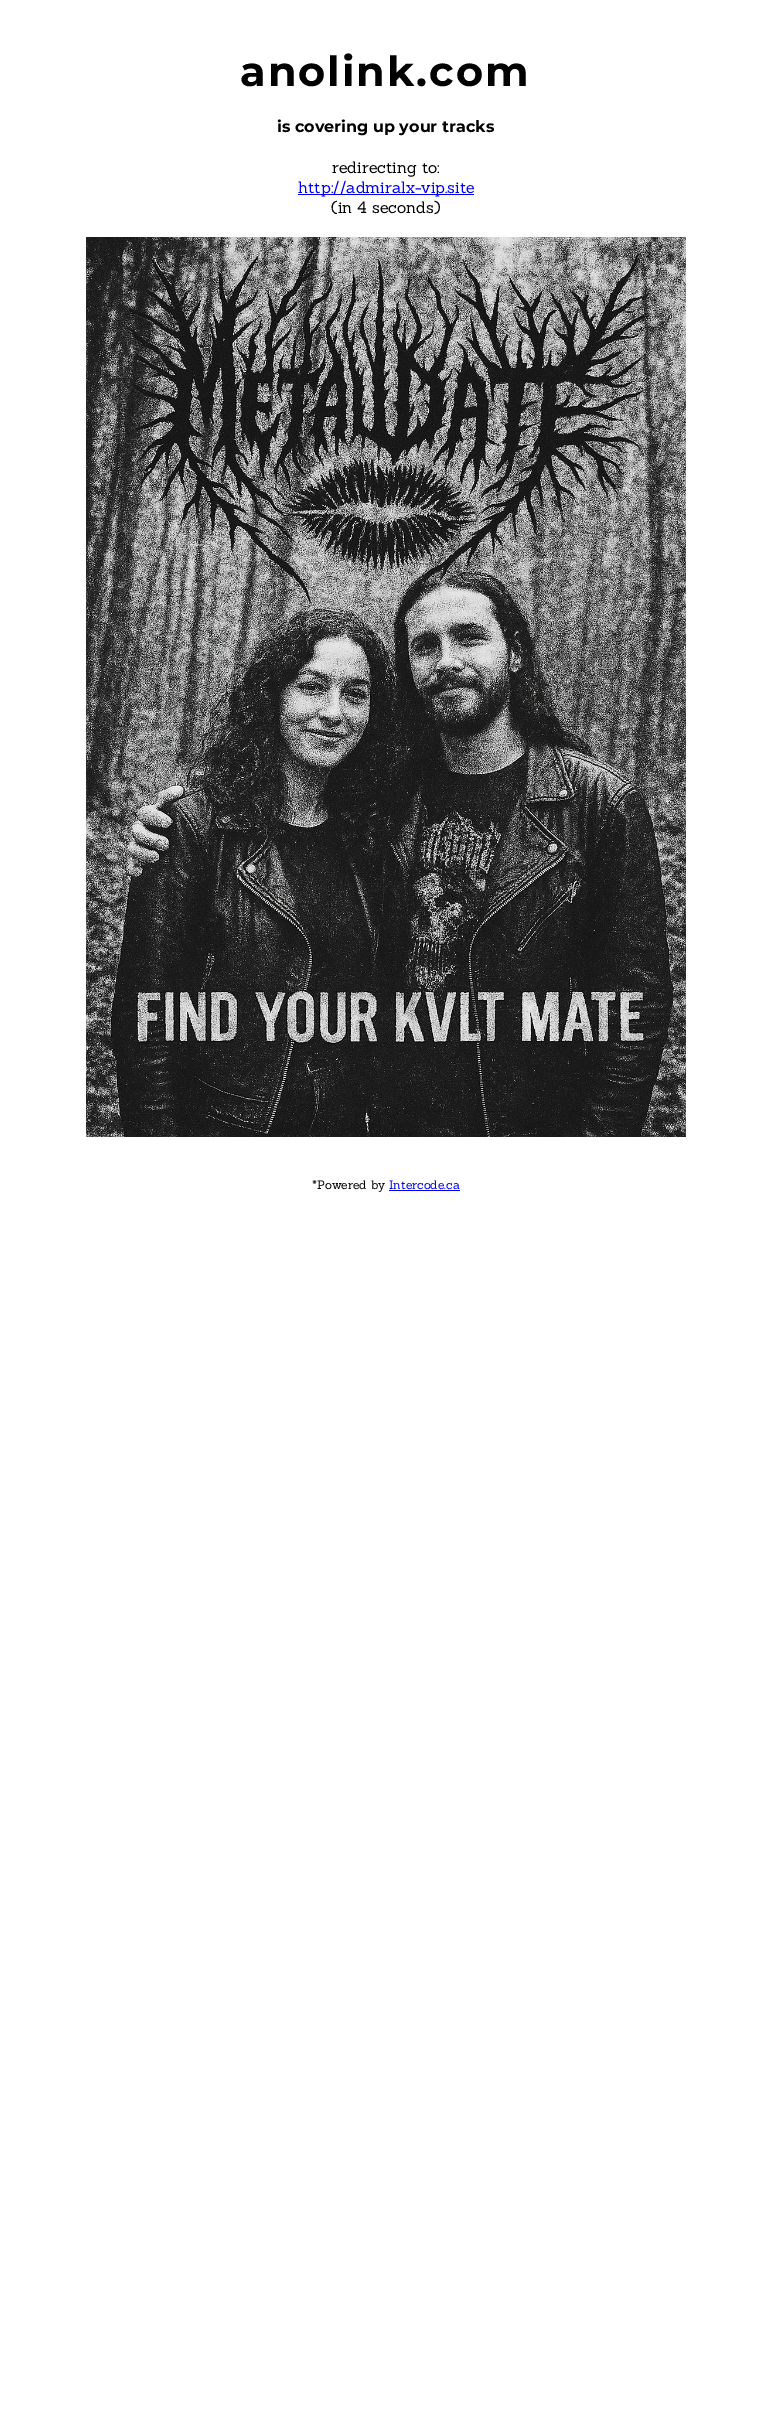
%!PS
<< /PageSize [772 2429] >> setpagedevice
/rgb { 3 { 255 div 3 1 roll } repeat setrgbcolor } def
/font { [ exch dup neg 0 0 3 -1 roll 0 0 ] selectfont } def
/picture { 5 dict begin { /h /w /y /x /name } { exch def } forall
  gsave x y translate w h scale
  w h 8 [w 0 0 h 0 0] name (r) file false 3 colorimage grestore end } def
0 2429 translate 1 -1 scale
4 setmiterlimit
255 255 255 rgb
0 0 772 2429 rectfill
0 0 238 rgb
298 194 176 1 rectfill
(img/1.rgb) 86 237 600 900 picture
389 1190 71 1 rectfill
/Montserrat-Thin 41.5 font
0 0 0 rgb
240 86 moveto 2 0 (anolink.com) ashow
/Montserrat-Thin 16 font
277 132 moveto (is covering up your tracks) show
/Sanchez-Regular 16 font
332 173 moveto (redirecting to:) show
0 0 238 rgb
298 193 moveto (http://admiralx-vip.site) show
0 0 0 rgb
331 213 moveto (\(in 4 seconds\)) show
/Sanchez-Regular 12 font
312 1189 moveto (*Powered by) show
0 0 238 rgb
389 1189 moveto (Intercode.ca) show
showpage
